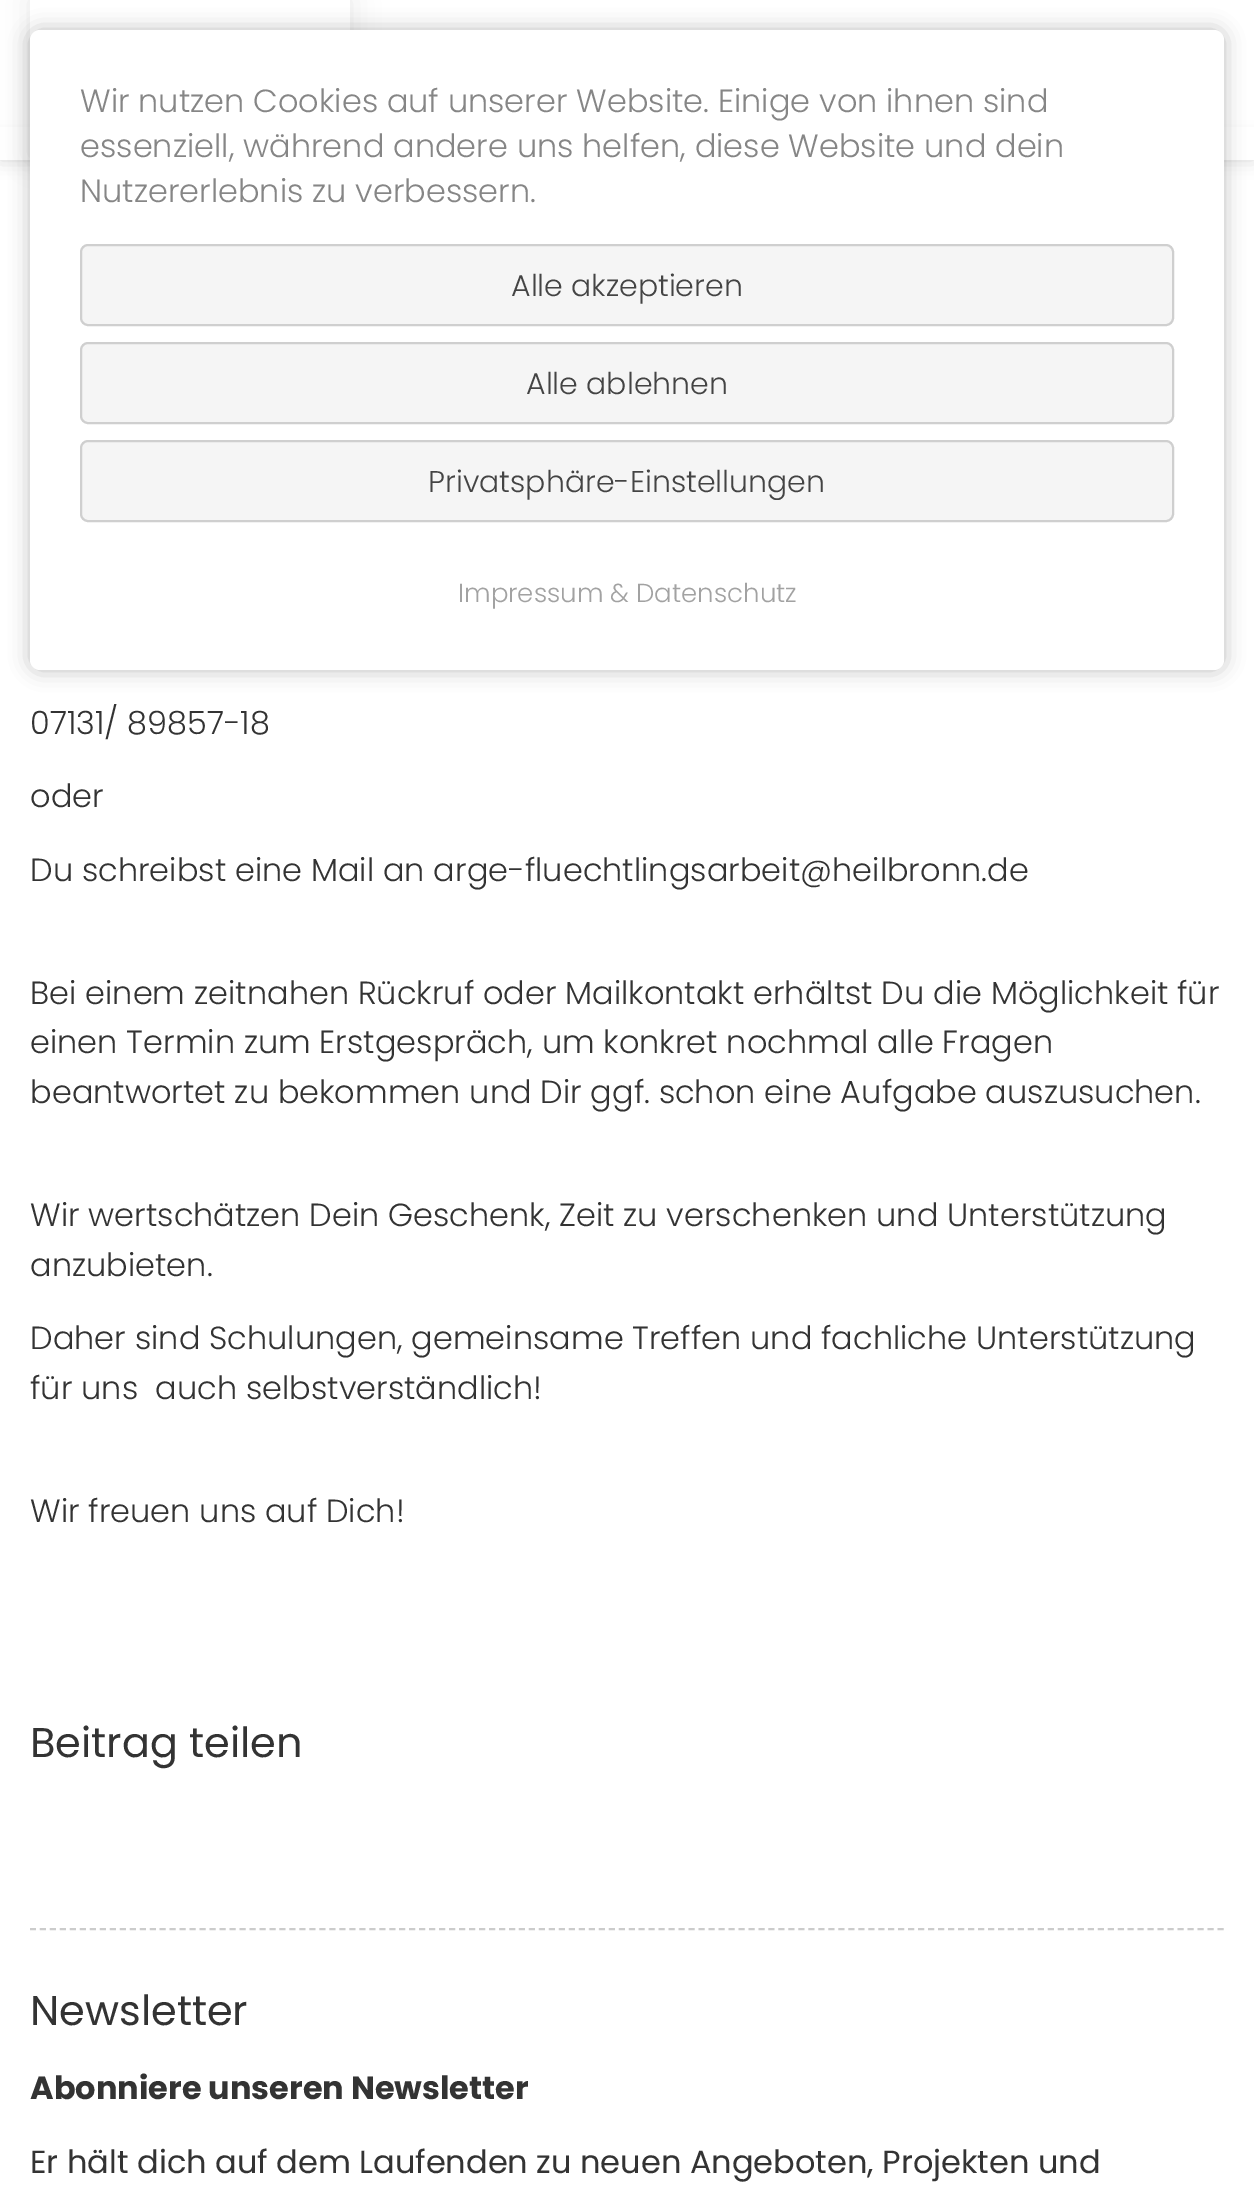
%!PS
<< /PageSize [1254 2197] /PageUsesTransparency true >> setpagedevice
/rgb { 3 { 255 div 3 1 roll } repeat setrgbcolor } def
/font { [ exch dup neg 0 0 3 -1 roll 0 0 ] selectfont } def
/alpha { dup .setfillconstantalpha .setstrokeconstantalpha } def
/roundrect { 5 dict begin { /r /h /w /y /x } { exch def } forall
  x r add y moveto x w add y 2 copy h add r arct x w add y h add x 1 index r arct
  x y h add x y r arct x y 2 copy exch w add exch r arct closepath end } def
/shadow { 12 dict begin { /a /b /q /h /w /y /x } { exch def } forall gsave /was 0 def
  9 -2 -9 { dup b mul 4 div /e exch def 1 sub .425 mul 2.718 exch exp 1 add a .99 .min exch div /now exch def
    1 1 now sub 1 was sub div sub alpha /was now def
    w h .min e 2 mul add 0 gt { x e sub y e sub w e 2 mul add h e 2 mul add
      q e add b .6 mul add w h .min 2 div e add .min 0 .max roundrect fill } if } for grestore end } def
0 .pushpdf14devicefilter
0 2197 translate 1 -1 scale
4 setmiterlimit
255 255 255 rgb
0 0 1254 2197 rectfill
0 0 0 rgb
0 140 1254 20 0 9 0.15 shadow
255 255 255 rgb
0 127 1254 33 rectfill
0 0 0 rgb
30 30 1194 640 10 10 0.25 shadow
gsave
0 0 moveto 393 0 lineto 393 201 lineto 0 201 lineto closepath 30 -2 moveto 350 -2 lineto 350 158 lineto 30 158 lineto closepath eoclip newpath
30 -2 320 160 0 14 0.09 shadow
grestore
255 255 255 rgb
30 30 1194 640 10 roundrect fill
245 245 245 rgb
81 245 1092 80 7 roundrect gsave fill grestore
207 207 207 rgb
2 setlinewidth
stroke
245 245 245 rgb
81 343 1092 80 7 roundrect gsave fill grestore
207 207 207 rgb
stroke
245 245 245 rgb
81 441 1092 80 7 roundrect gsave fill grestore
207 207 207 rgb
stroke
204 204 204 rgb
[6 3.98] 0 setdash
30 1929 moveto 1224 1929 lineto stroke
/Poppins-Light 32 font
134 134 134 rgb
[
  [(Wir nutzen Cookies auf unserer Website. Einige von ihnen sind) 80 112]
  [(essenziell, während andere uns helfen, diese Website und dein) 80 157]
  [(Nutzererlebnis zu verbessern.) 80 202]
] { aload pop moveto show } forall
/Poppins-Light 30 font
68 68 68 rgb
[
  [(Alle akzeptieren) 511 296]
  [(Alle ablehnen) 526 394]
  [(Privatsphäre-Einstellungen) 428 492]
] { aload pop moveto show } forall
/Poppins-Light 26 font
162 162 162 rgb
458 602 moveto (Impressum & Datenschutz) show
/Poppins-Light 32 font
51 51 51 rgb
[
  [(07131/ 89857-18) 30 734]
  [(oder) 30 807]
  [(Du schreibst eine Mail an arge-fluechtlingsarbeit@heilbronn.de) 30 881]
  [(Bei einem zeitnahen Rückruf oder Mailkontakt erhältst Du die Möglichkeit für) 30 1004]
  [(einen Termin zum Erstgespräch, um konkret nochmal alle Fragen) 30 1053]
  [(beantwortet zu bekommen und Dir ggf. schon eine Aufgabe auszusuchen.) 30 1103]
  [(Wir wertschätzen Dein Geschenk, Zeit zu verschenken und Unterstützung) 30 1226]
  [(anzubieten.) 30 1276]
  [(Daher sind Schulungen, gemeinsame Treffen und fachliche Unterstützung) 30 1349]
  [(für uns  auch selbstverständlich!) 30 1399]
  [(Wir freuen uns auf Dich!) 30 1522]
] { aload pop moveto show } forall
/Poppins-Regular 41.5 font
30 1757 moveto (Beitrag teilen) show
30 2025 moveto (Newsletter) show
/Poppins-Bold 32 font
30 2099 moveto (Abonniere unseren Newsletter) show
/Poppins-Regular 32 font
30 2173 moveto (Er hält dich auf dem Laufenden zu neuen Angeboten, Projekten und) show
.poppdf14devicefilter showpage
